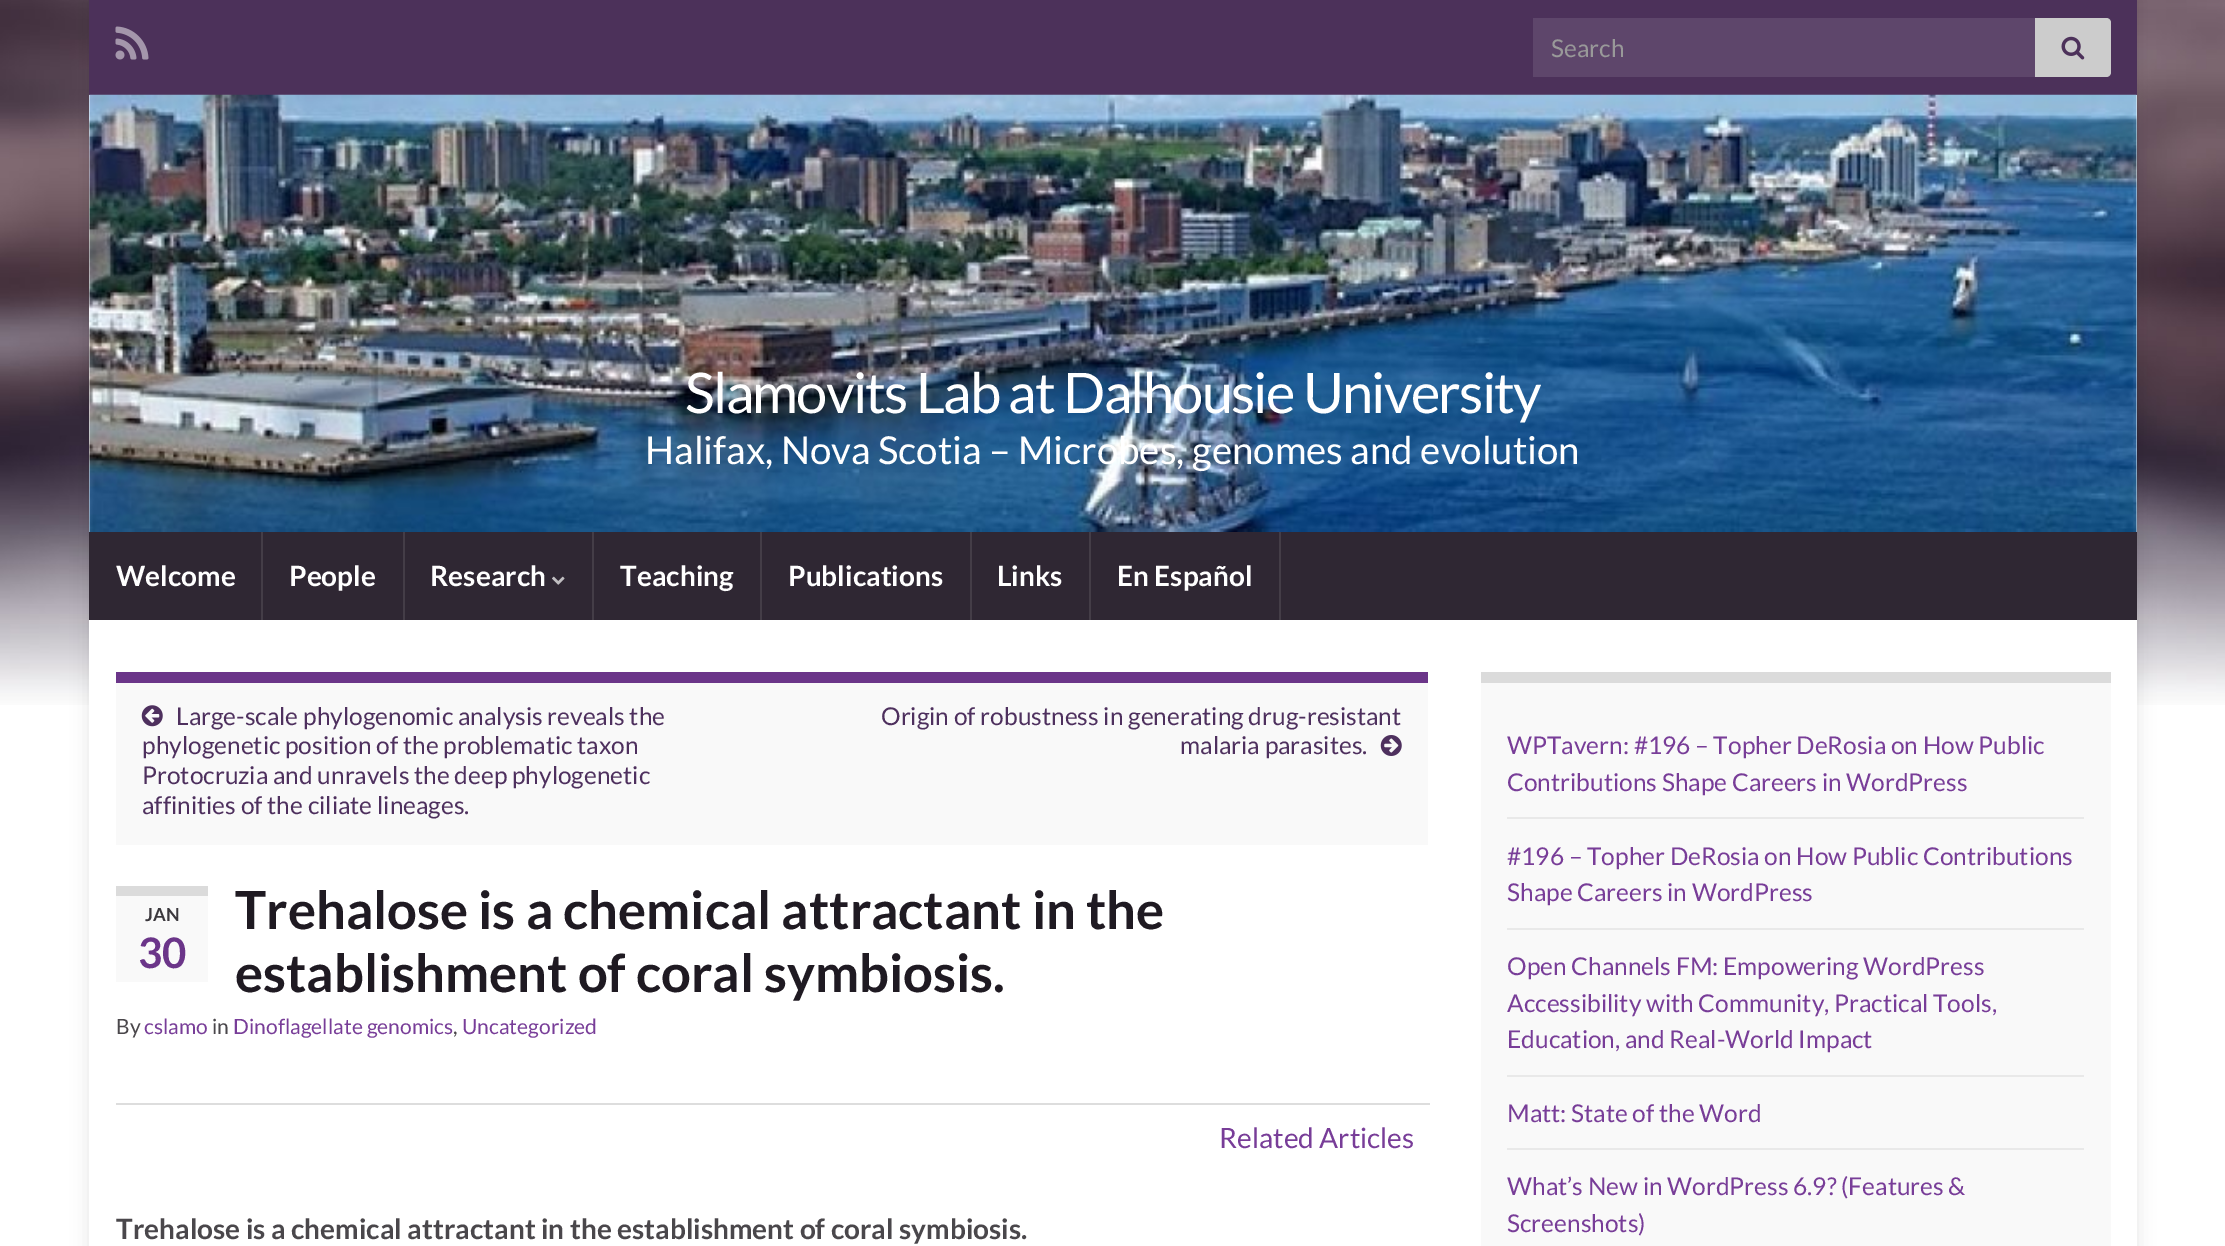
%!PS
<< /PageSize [2225 1246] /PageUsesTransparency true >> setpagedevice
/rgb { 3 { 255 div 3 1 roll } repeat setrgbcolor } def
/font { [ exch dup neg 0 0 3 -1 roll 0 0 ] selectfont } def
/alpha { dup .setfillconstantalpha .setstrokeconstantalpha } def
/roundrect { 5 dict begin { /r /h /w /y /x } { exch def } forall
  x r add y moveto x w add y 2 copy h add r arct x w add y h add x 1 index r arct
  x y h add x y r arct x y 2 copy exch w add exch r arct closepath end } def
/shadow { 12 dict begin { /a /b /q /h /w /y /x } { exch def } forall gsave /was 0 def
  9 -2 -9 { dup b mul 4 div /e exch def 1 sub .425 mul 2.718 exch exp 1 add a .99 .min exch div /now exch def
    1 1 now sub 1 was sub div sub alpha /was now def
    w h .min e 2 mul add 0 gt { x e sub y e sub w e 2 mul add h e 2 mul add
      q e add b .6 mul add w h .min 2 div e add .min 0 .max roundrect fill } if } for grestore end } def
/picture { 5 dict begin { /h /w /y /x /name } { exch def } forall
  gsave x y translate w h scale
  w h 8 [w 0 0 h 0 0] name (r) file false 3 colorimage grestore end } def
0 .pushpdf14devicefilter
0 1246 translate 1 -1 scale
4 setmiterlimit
255 255 255 rgb
0 0 2225 1246 rectfill
(img/1.rgb) 0 0 2225 705 picture
0 0 0 rgb
89 0 2048 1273 0 9 0.1 shadow
76 49 90 rgb
89 0 2048 95 rectfill
(img/2.rgb) 115 26 34 34 picture
94 70 107 rgb
1533 18 502 59 rectfill
204 204 204 rgb
2035 18 moveto 2106 18 lineto 2109 18 2111 20 2111 23 curveto 2111 72 lineto 2111 75 2109 77 2106 77 curveto 2035 77 lineto closepath fill
(img/3.rgb) 2061 36 24 24 picture
255 255 255 rgb
89 95 2048 437 rectfill
(img/4.rgb) 89 94 2048 438 picture
[
  [89 532 2048 88 47 39 51]
  [261 532 2 88 68 61 71]
  [403 532 2 88 68 61 71]
  [592 532 2 88 68 61 71]
] { aload pop rgb rectfill } forall
(img/5.rgb) 552 576 13 9 picture
[
  [760 532 2 88 68 61 71]
  [970 532 2 88 68 61 71]
  [1089 532 2 88 68 61 71]
  [1279 532 2 88 68 61 71]
  [89 620 2048 626 255 255 255]
  [116 683 1312 162 249 249 249]
  [116 672 1312 11 107 53 137]
] { aload pop rgb rectfill } forall
(img/6.rgb) 141 705 22 22 picture
(img/7.rgb) 1380 735 22 21 picture
[
  [116 896 92 86 249 249 249]
  [116 886 92 10 219 219 219]
  [116 1103 1314 2 221 221 221]
  [1481 683 630 563 249 249 249]
  [1481 672 630 11 219 219 219]
  [1507 817 577 2 233 233 233]
  [1507 928 577 2 233 233 233]
  [1507 1075 577 2 233 233 233]
  [1507 1148 577 2 233 233 233]
] { aload pop rgb rectfill } forall
/Lato-Regular 24.5 font
153 153 153 rgb
1551 57 moveto (Search) show
/Lato-Regular 56 font
255 255 255 rgb
685 413 moveto -1.75 0 (Slamovits Lab at Dalhousie University) ashow
/Lato-Regular 38.5 font
645 464 moveto (Halifax, Nova Scotia – Microbes, genomes and evolution) show
/Lato-Bold 28 font
[
  [(Welcome) 116 586]
  [(People) 289 586]
  [(Research) 430 586]
  [(Teaching) 620 586]
  [(Publications) 788 586]
  [(Links) 997 586]
  [(En Español) 1117 586]
] { aload pop moveto show } forall
/Lato-Regular 24.5 font
78 48 94 rgb
[
  [(Large-scale phylogenomic analysis reveals the) 176 725]
  [(phylogenetic position of the problematic taxon) 142 754]
  [(Protocruzia and unravels the deep phylogenetic) 142 784]
  [(affinities of the ciliate lineages.) 142 814]
  [(Origin of robustness in generating drug-resistant) 881 725]
  [(malaria parasites.) 1180 754]
] { aload pop moveto show } forall
/Lato-Bold 18 font
59 56 61 rgb
145 921 moveto (JAN) show
/Lato-Bold 42 font
107 53 137 rgb
138 968 moveto (30) show
/Lato-Bold 52.5 font
31 26 34 rgb
235 929 moveto (Trehalose is a chemical attractant in the) show
235 992 moveto (establishment of coral symbiosis.) show
/Lato-Regular 21 font
74 71 75 rgb
116 1034 moveto (By) show
120 61 152 rgb
144 1034 moveto (cslamo) show
74 71 75 rgb
212 1034 moveto (in) show
120 61 152 rgb
233 1034 moveto (Dinoflagellate genomics) show
74 71 75 rgb
453 1034 moveto (,) show
120 61 152 rgb
462 1034 moveto (Uncategorized) show
/Lato-Regular 28 font
1219 1148 moveto (Related Articles) show
/Lato-Bold 28 font
74 71 75 rgb
116 1239 moveto (Trehalose is a chemical attractant in the establishment of coral symbiosis.) show
/Lato-Regular 24.5 font
120 61 152 rgb
[
  [(WPTavern: #196 – Topher DeRosia on How Public) 1507 754]
  [(Contributions Shape Careers in WordPress) 1507 791]
  [(#196 – Topher DeRosia on How Public Contributions) 1507 865]
  [(Shape Careers in WordPress) 1507 901]
  [(Open Channels FM: Empowering WordPress) 1507 975]
  [(Accessibility with Community, Practical Tools,) 1507 1012]
  [(Education, and Real-World Impact) 1507 1048]
  [(Matt: State of the Word) 1507 1122]
  [(What’s New in WordPress 6.9? \(Features &) 1507 1195]
  [(Screenshots\)) 1507 1232]
] { aload pop moveto show } forall
.poppdf14devicefilter showpage
